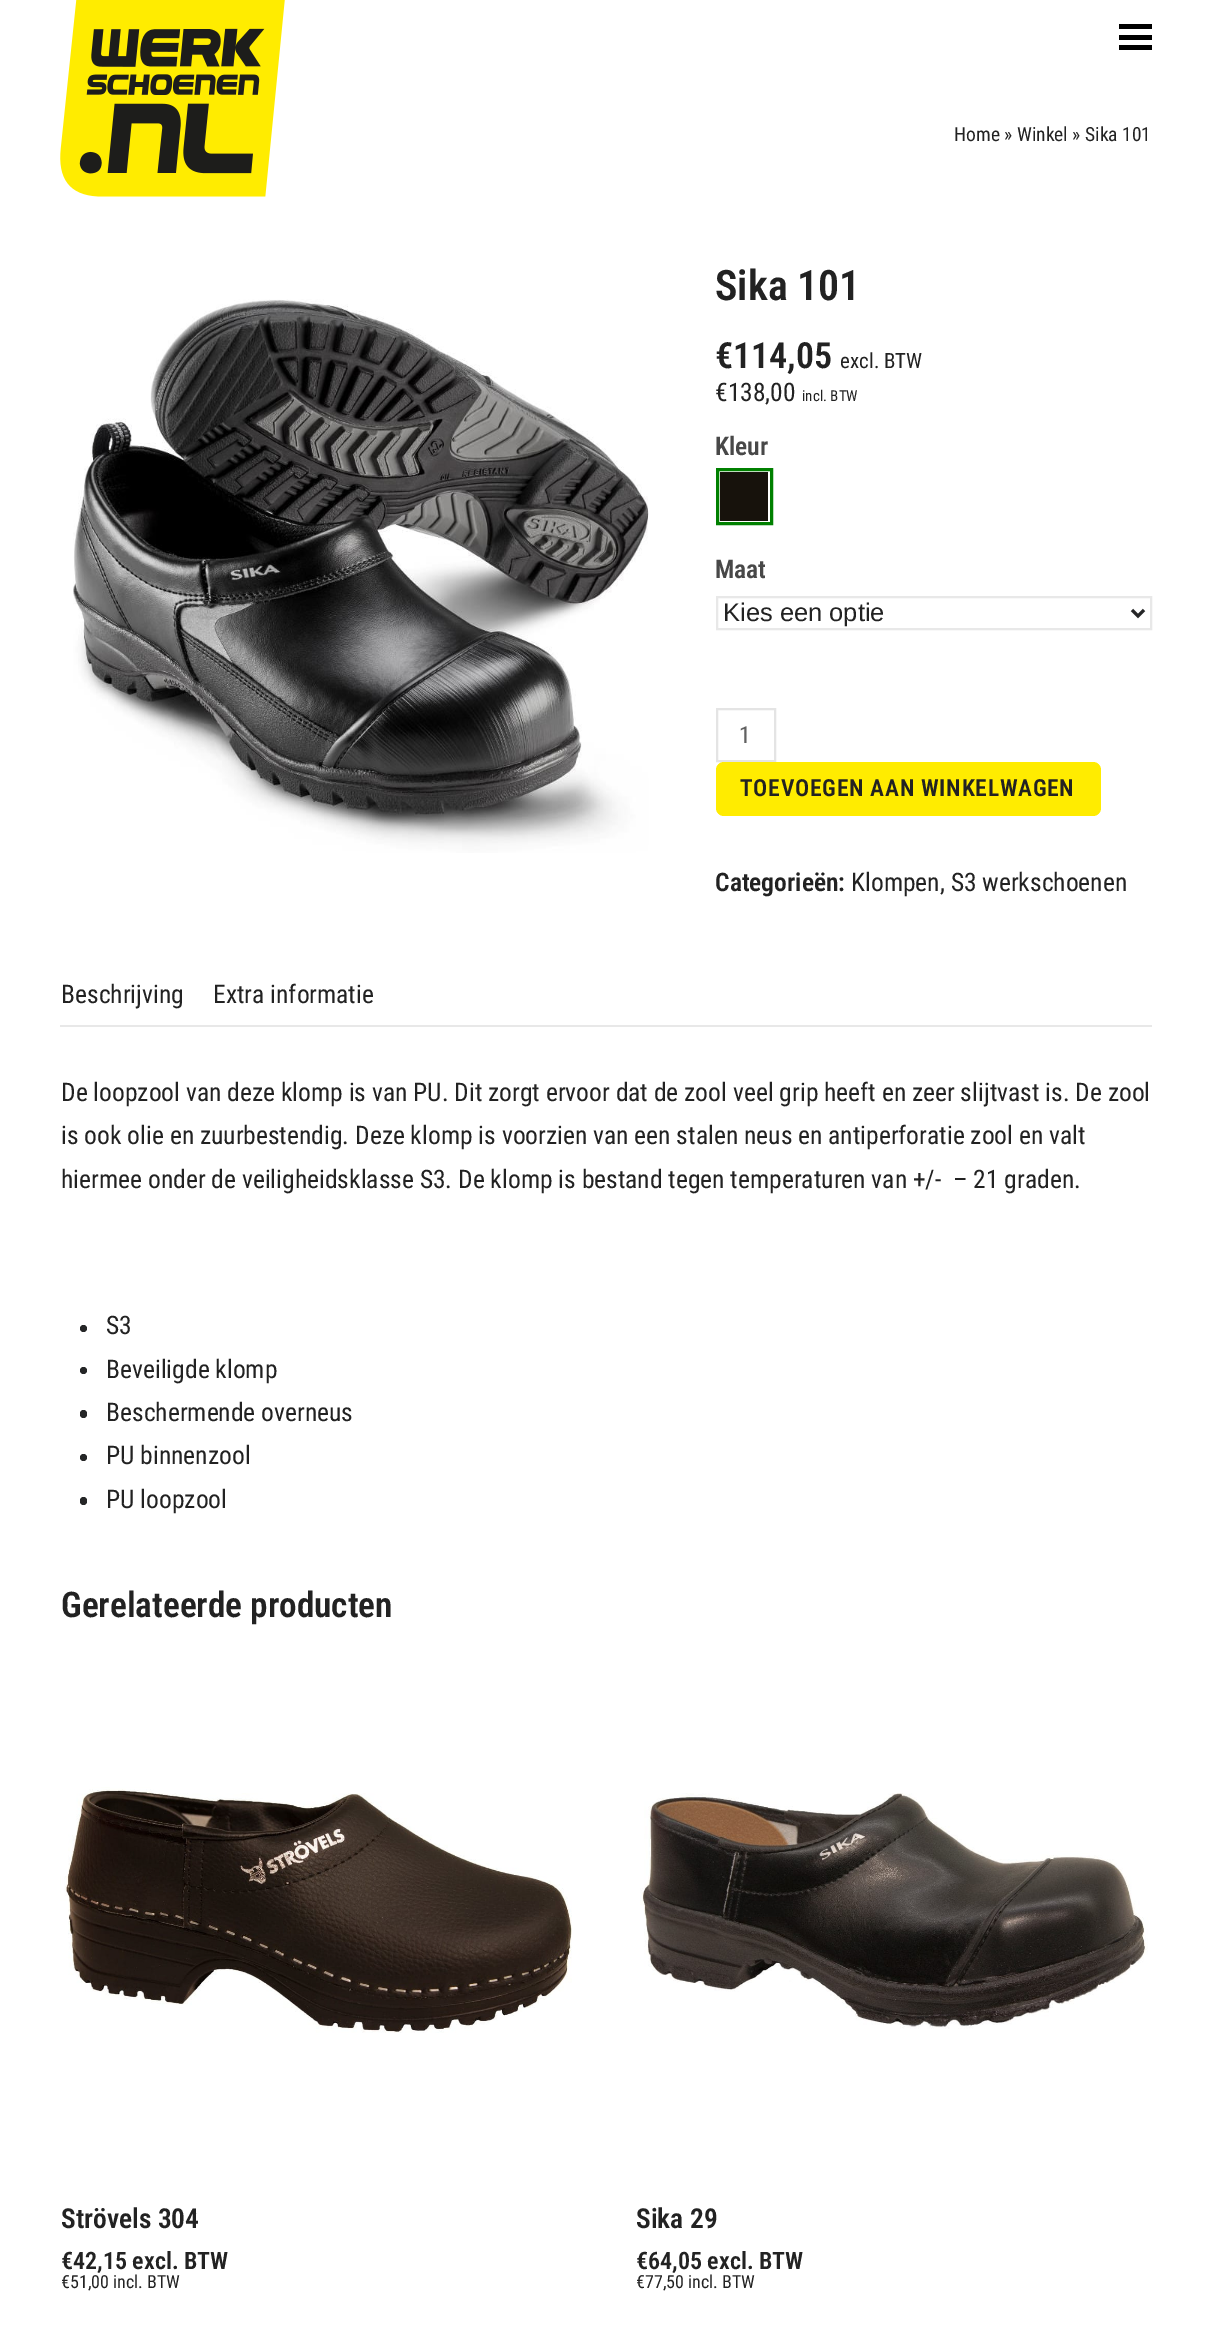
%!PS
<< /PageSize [1211 2329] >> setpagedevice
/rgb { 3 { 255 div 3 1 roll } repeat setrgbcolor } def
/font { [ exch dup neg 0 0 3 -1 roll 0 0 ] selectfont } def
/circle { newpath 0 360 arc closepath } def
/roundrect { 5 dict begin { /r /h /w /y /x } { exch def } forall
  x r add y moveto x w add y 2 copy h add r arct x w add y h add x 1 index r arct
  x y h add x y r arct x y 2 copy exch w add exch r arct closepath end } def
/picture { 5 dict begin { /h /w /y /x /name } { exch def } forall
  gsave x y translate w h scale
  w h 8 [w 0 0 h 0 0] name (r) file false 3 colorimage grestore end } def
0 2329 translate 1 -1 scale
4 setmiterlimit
255 255 255 rgb
0 0 1211 2329 rectfill
(img/1.rgb) 60 0 225 197 picture
[
  [1119 35 33 5 0 0 0]
  [1119 24 33 5 0 0 0]
  [1119 45 33 5 0 0 0]
] { aload pop rgb rectfill } forall
(img/2.rgb) 73 299 576 554 picture
0 128 0 rgb
3 setlinewidth
717.5 469.5 54 54 rectstroke
23 18 12 rgb
720 472 48 49 rectfill
232 232 232 rgb
2 setlinewidth
717 597 434 32 rectstroke
37 38 39 rgb
3 setlinewidth
1132 610 moveto 1138 616 lineto 1144 610 lineto stroke
228 228 228 rgb
2 setlinewidth
717 709 58 52 rectstroke
255 236 0 rgb
716 762 385 54 8 roundrect fill
232 232 232 rgb
60 1025 1092 2 rectfill
37 38 39 rgb
83.5 1328.5 3.5 circle fill
83.5 1370.5 3.5 circle fill
80 1410 7 8 3.5 roundrect fill
83.5 1457.5 3.5 circle fill
80 1497 7 8 3.5 roundrect fill
(img/3.rgb) 60 1787 512 246 picture
(img/4.rgb) 640 1793 508 236 picture
/RobotoCondensed-Regular 19.5 font
34 34 34 rgb
954 141 moveto (Home » Winkel » Sika 101) show
/RobotoCondensed-SemiBold 42 font
715 300 moveto (Sika 101) show
/RobotoCondensed-SemiBold 36 font
715 368 moveto (€114,05) show
/RobotoCondensed-Regular 21 font
840 368 moveto (excl. BTW) show
/RobotoCondensed-Regular 25.5 font
715 401 moveto (€138,00) show
/RobotoCondensed-Regular 15 font
802 401 moveto (incl. BTW) show
/RobotoCondensed-SemiBold 25.5 font
72 72 72 rgb
715 455 moveto (Kleur) show
715 578 moveto (Maat) show
/LiberationSans-Regular 25.5 font
34 34 34 rgb
723 621 moveto (Kies een optie) show
/RobotoCondensed-Regular 23.5 font
97 97 97 rgb
739 743 moveto (1) show
/RobotoCondensed-SemiBold 23.5 font
34 34 34 rgb
740 796 moveto 0.75 0 (TOEVOEGEN AAN WINKELWAGEN) ashow
/RobotoCondensed-SemiBold 25.5 font
715 891 moveto (Categorieën:) show
/RobotoCondensed-Regular 25.5 font
[
  [(Klompen, S3 werkschoenen) 851 891]
  [(Beschrijving) 61 1003]
  [(Extra informatie) 213 1003]
  [(De loopzool van deze klomp is van PU. Dit zorgt ervoor dat de zool veel grip heeft en zeer slijtvast is. De zool) 61 1101]
  [(is ook olie en zuurbestendig. Deze klomp is voorzien van een stalen neus en antiperforatie zool en valt) 61 1144]
  [(hiermee onder de veiligheidsklasse S3. De klomp is bestand tegen temperaturen van +/-  – 21 graden.) 61 1188]
  [(S3) 106 1334]
  [(Beveiligde klomp) 106 1378]
  [(Beschermende overneus) 106 1421]
  [(PU binnenzool) 106 1464]
  [(PU loopzool) 106 1508]
] { aload pop moveto show } forall
/RobotoCondensed-SemiBold 35.25 font
61 1617 moveto (Gerelateerde producten) show
/RobotoCondensed-SemiBold 27.5 font
61 2228 moveto (Strövels 304) show
/RobotoCondensed-SemiBold 24 font
61 2269 moveto (€42,15 excl. BTW) show
/RobotoCondensed-Regular 18 font
61 2288 moveto (€51,00 incl. BTW) show
/RobotoCondensed-SemiBold 27.5 font
636 2228 moveto (Sika 29) show
/RobotoCondensed-SemiBold 24 font
636 2269 moveto (€64,05 excl. BTW) show
/RobotoCondensed-Regular 18 font
636 2288 moveto (€77,50 incl. BTW) show
showpage
